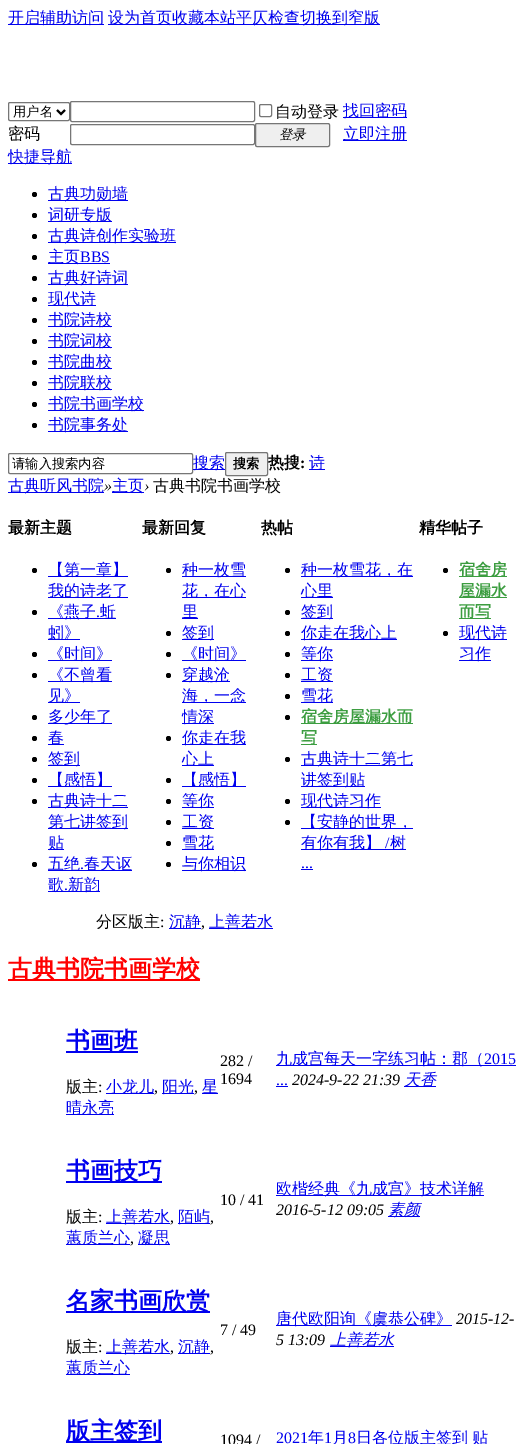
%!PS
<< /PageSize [531 1444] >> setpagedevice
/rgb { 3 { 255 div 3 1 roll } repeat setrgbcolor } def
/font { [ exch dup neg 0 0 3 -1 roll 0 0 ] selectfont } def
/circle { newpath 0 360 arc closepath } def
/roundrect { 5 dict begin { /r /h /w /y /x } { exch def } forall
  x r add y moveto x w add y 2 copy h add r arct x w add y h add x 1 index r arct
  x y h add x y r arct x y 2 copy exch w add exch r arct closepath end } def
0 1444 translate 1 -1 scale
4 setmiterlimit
255 255 255 rgb
0 0 531 1444 rectfill
0 0 238 rgb
8 24 96 1 rectfill
108 24 272 1 rectfill
118 118 118 rgb
8.5 102.5 61 18 1.5 roundrect stroke
0 0 0 rgb
2 setlinewidth
57 110 moveto 61 114 lineto 65 110 lineto stroke
118 118 118 rgb
1 setlinewidth
70.5 101.5 184 20 1.5 roundrect stroke
259.5 104.5 12 12 1.5 roundrect stroke
0 0 238 rgb
343 117 64 1 rectfill
118 118 118 rgb
70.5 124.5 184 20 1.5 roundrect stroke
239 239 239 rgb
255.5 123.5 74 23 1.5 roundrect gsave fill grestore
118 118 118 rgb
stroke
0 0 238 rgb
343 140 64 1 rectfill
8 163 64 1 rectfill
0 0 0 rgb
34.5 194.5 2.5 circle fill
0 0 238 rgb
48 200 80 1 rectfill
0 0 0 rgb
34.5 215.5 2.5 circle fill
0 0 238 rgb
48 221 64 1 rectfill
0 0 0 rgb
34.5 236.5 2.5 circle fill
0 0 238 rgb
48 242 128 1 rectfill
0 0 0 rgb
34.5 257.5 2.5 circle fill
0 0 238 rgb
48 263 62 1 rectfill
0 0 0 rgb
34.5 278.5 2.5 circle fill
0 0 238 rgb
48 284 80 1 rectfill
0 0 0 rgb
34.5 299.5 2.5 circle fill
0 0 238 rgb
48 305 48 1 rectfill
0 0 0 rgb
34.5 320.5 2.5 circle fill
0 0 238 rgb
48 326 64 1 rectfill
0 0 0 rgb
34.5 341.5 2.5 circle fill
0 0 238 rgb
48 347 64 1 rectfill
0 0 0 rgb
34.5 362.5 2.5 circle fill
0 0 238 rgb
48 368 64 1 rectfill
0 0 0 rgb
34.5 383.5 2.5 circle fill
0 0 238 rgb
48 389 64 1 rectfill
0 0 0 rgb
34.5 404.5 2.5 circle fill
0 0 238 rgb
48 410 96 1 rectfill
0 0 0 rgb
34.5 425.5 2.5 circle fill
0 0 238 rgb
48 431 80 1 rectfill
118 118 118 rgb
8.5 453.5 184 20 1.5 roundrect stroke
0 0 238 rgb
193 469 32 1 rectfill
239 239 239 rgb
225.5 452.5 42 23 1.5 roundrect gsave fill grestore
118 118 118 rgb
stroke
[
  [309 469 16 1 0 0 238]
  [8 492 96 1 0 0 238]
  [112 492 32 1 0 0 238]
] { aload pop rgb rectfill } forall
0 0 0 rgb
34.5 570.5 2.5 circle fill
0 0 238 rgb
48 576 80 1 rectfill
48 597 80 1 rectfill
0 0 0 rgb
34.5 612.5 2.5 circle fill
0 0 238 rgb
48 618 68 1 rectfill
48 639 32 1 rectfill
0 0 0 rgb
34.5 654.5 2.5 circle fill
0 0 238 rgb
48 660 64 1 rectfill
0 0 0 rgb
34.5 675.5 2.5 circle fill
0 0 238 rgb
48 681 64 1 rectfill
48 702 32 1 rectfill
0 0 0 rgb
34.5 717.5 2.5 circle fill
0 0 238 rgb
48 723 64 1 rectfill
0 0 0 rgb
34.5 738.5 2.5 circle fill
0 0 238 rgb
48 744 16 1 rectfill
0 0 0 rgb
34.5 759.5 2.5 circle fill
0 0 238 rgb
48 765 32 1 rectfill
0 0 0 rgb
34.5 780.5 2.5 circle fill
0 0 238 rgb
48 786 64 1 rectfill
0 0 0 rgb
34.5 801.5 2.5 circle fill
[
  [48 807 80 1 0 0 238]
  [48 828 80 1 0 0 238]
  [48 849 16 1 0 0 238]
] { aload pop rgb rectfill } forall
0 0 0 rgb
34.5 864.5 2.5 circle fill
0 0 238 rgb
48 870 84 1 rectfill
48 891 52 1 rectfill
0 0 0 rgb
168.5 570.5 2.5 circle fill
[
  [182 576 64 1 0 0 238]
  [182 597 64 1 0 0 238]
  [182 618 16 1 0 0 238]
] { aload pop rgb rectfill } forall
0 0 0 rgb
168.5 633.5 2.5 circle fill
0 0 238 rgb
182 639 32 1 rectfill
0 0 0 rgb
168.5 654.5 2.5 circle fill
0 0 238 rgb
182 660 64 1 rectfill
0 0 0 rgb
168.5 675.5 2.5 circle fill
[
  [182 681 48 1 0 0 238]
  [182 702 64 1 0 0 238]
  [182 723 32 1 0 0 238]
] { aload pop rgb rectfill } forall
0 0 0 rgb
168.5 738.5 2.5 circle fill
0 0 238 rgb
182 744 64 1 rectfill
182 765 32 1 rectfill
0 0 0 rgb
168.5 780.5 2.5 circle fill
0 0 238 rgb
182 786 64 1 rectfill
0 0 0 rgb
168.5 801.5 2.5 circle fill
0 0 238 rgb
182 807 32 1 rectfill
0 0 0 rgb
168.5 822.5 2.5 circle fill
0 0 238 rgb
182 828 32 1 rectfill
0 0 0 rgb
168.5 843.5 2.5 circle fill
0 0 238 rgb
182 849 32 1 rectfill
0 0 0 rgb
168.5 864.5 2.5 circle fill
0 0 238 rgb
182 870 64 1 rectfill
0 0 0 rgb
287.5 570.5 2.5 circle fill
0 0 238 rgb
301 576 112 1 rectfill
301 597 32 1 rectfill
0 0 0 rgb
287.5 612.5 2.5 circle fill
0 0 238 rgb
301 618 32 1 rectfill
0 0 0 rgb
287.5 633.5 2.5 circle fill
0 0 238 rgb
301 639 96 1 rectfill
0 0 0 rgb
287.5 654.5 2.5 circle fill
0 0 238 rgb
301 660 32 1 rectfill
0 0 0 rgb
287.5 675.5 2.5 circle fill
0 0 238 rgb
301 681 32 1 rectfill
0 0 0 rgb
287.5 696.5 2.5 circle fill
0 0 238 rgb
301 702 32 1 rectfill
0 0 0 rgb
287.5 717.5 2.5 circle fill
60 157 64 rgb
301 723 112 1 rectfill
301 744 16 1 rectfill
0 0 0 rgb
287.5 759.5 2.5 circle fill
0 0 238 rgb
301 765 112 1 rectfill
301 786 64 1 rectfill
0 0 0 rgb
287.5 801.5 2.5 circle fill
0 0 238 rgb
301 807 80 1 rectfill
0 0 0 rgb
287.5 822.5 2.5 circle fill
[
  [301 828 112 1 0 0 238]
  [301 849 105 1 0 0 238]
  [301 869 12 1 0 0 238]
] { aload pop rgb rectfill } forall
0 0 0 rgb
445.5 570.5 2.5 circle fill
[
  [459 576 48 1 60 157 64]
  [459 597 48 1 60 157 64]
  [459 618 32 1 60 157 64]
] { aload pop rgb rectfill } forall
0 0 0 rgb
445.5 633.5 2.5 circle fill
[
  [459 639 48 1 0 0 238]
  [459 660 32 1 0 0 238]
  [169 928 32 1 0 0 238]
  [209 928 64 1 0 0 238]
  [8 979 192 2 255 0 0]
  [66 1051 72 2 0 0 238]
  [106 1093 48 1 0 0 238]
  [162 1093 32 1 0 0 238]
  [202 1093 16 1 0 0 238]
  [66 1114 48 1 0 0 238]
  [276 1065 240 1 0 0 238]
  [276 1086 12 1 0 0 238]
  [404 1086 32 1 0 0 238]
  [66 1181 96 2 0 0 238]
  [106 1223 64 1 0 0 238]
  [178 1223 32 1 0 0 238]
  [66 1244 64 1 0 0 238]
  [138 1244 32 1 0 0 238]
  [276 1195 208 1 0 0 238]
  [388 1216 32 1 0 0 238]
  [66 1311 144 2 0 0 238]
  [106 1353 64 1 0 0 238]
  [178 1353 32 1 0 0 238]
  [66 1374 64 1 0 0 238]
  [276 1325 176 1 0 0 238]
  [330 1346 64 1 0 0 238]
  [66 1441 96 2 0 0 238]
] { aload pop rgb rectfill } forall
/WenQuanYiZenHei-Medium 16 font
8 23 moveto (开启辅助访问) show
108 23 moveto (设为首页收藏本站平仄检查切换到窄版) show
/WenQuanYiZenHei-Medium 13.25 font
0 0 0 rgb
13 116 moveto (用户名) show
/WenQuanYiZenHei-Medium 16 font
275 117 moveto (自动登录) show
0 0 238 rgb
343 116 moveto (找回密码) show
0 0 0 rgb
8 139 moveto (密码) show
/WenQuanYiZenHei-MediumItalic 13.25 font
279 139 moveto (登录) show
/WenQuanYiZenHei-Medium 16 font
0 0 238 rgb
[
  [(立即注册) 343 139]
  [(快捷导航) 8 162]
  [(古典功勋墙) 48 199]
  [(词研专版) 48 220]
  [(古典诗创作实验班) 48 241]
  [(主页) 48 262]
] { aload pop moveto show } forall
/LiberationSerif-Regular 16 font
80 262 moveto (BBS) show
/WenQuanYiZenHei-Medium 16 font
[
  [(古典好诗词) 48 283]
  [(现代诗) 48 304]
  [(书院诗校) 48 325]
  [(书院词校) 48 346]
  [(书院曲校) 48 367]
  [(书院联校) 48 388]
  [(书院书画学校) 48 409]
  [(书院事务处) 48 430]
] { aload pop moveto show } forall
/WenQuanYiZenHei-Medium 13.25 font
0 0 0 rgb
12 468 moveto (请输入搜索内容) show
/WenQuanYiZenHei-Medium 16 font
0 0 238 rgb
193 468 moveto (搜索) show
/WenQuanYiZenHei-Bold 13.25 font
0 0 0 rgb
233 468 moveto (搜索) show
/WenQuanYiZenHei-Bold 16 font
268 468 moveto (热搜) show
/LiberationSerif-Bold 16 font
300 468 moveto (:) show
/WenQuanYiZenHei-Medium 16 font
0 0 238 rgb
309 468 moveto (诗) show
8 491 moveto (古典听风书院) show
/LiberationSerif-Italic 16 font
0 0 0 rgb
104 491 moveto (») show
/WenQuanYiZenHei-Medium 16 font
0 0 238 rgb
112 491 moveto (主页) show
/LiberationSerif-Italic 16 font
0 0 0 rgb
144 491 moveto (›) show
/WenQuanYiZenHei-Medium 16 font
153 491 moveto (古典书院书画学校) show
/WenQuanYiZenHei-Bold 16 font
8 533 moveto (最新主题) show
/WenQuanYiZenHei-Medium 16 font
0 0 238 rgb
[
  [(【第一章】) 48 575]
  [(我的诗老了) 48 596]
  [(《燕子) 48 617]
  [(蚯) 100 617]
] { aload pop moveto show } forall
/LiberationSerif-Regular 16 font
96 617 moveto (.) show
/WenQuanYiZenHei-Medium 16 font
[
  [(蚓》) 48 638]
  [(《时间》) 48 659]
  [(《不曾看) 48 680]
  [(见》) 48 701]
  [(多少年了) 48 722]
  [(春) 48 743]
  [(签到) 48 764]
  [(【感悟】) 48 785]
  [(古典诗十二) 48 806]
  [(第七讲签到) 48 827]
  [(贴) 48 848]
  [(五绝) 48 869]
  [(春天讴) 84 869]
] { aload pop moveto show } forall
/LiberationSerif-Regular 16 font
80 869 moveto (.) show
/WenQuanYiZenHei-Medium 16 font
48 890 moveto (歌) show
/LiberationSerif-Regular 16 font
64 890 moveto (.) show
/WenQuanYiZenHei-Medium 16 font
68 890 moveto (新韵) show
/WenQuanYiZenHei-Bold 16 font
0 0 0 rgb
142 533 moveto (最新回复) show
/WenQuanYiZenHei-Medium 16 font
0 0 238 rgb
[
  [(种一枚雪) 182 575]
  [(花，在心) 182 596]
  [(里) 182 617]
  [(签到) 182 638]
  [(《时间》) 182 659]
  [(穿越沧) 182 680]
  [(海，一念) 182 701]
  [(情深) 182 722]
  [(你走在我) 182 743]
  [(心上) 182 764]
  [(【感悟】) 182 785]
  [(等你) 182 806]
  [(工资) 182 827]
  [(雪花) 182 848]
  [(与你相识) 182 869]
] { aload pop moveto show } forall
/WenQuanYiZenHei-Bold 16 font
0 0 0 rgb
261 533 moveto (热帖) show
/WenQuanYiZenHei-Medium 16 font
0 0 238 rgb
[
  [(种一枚雪花，在) 301 575]
  [(心里) 301 596]
  [(签到) 301 617]
  [(你走在我心上) 301 638]
  [(等你) 301 659]
  [(工资) 301 680]
  [(雪花) 301 701]
] { aload pop moveto show } forall
/WenQuanYiZenHei-Bold 16 font
60 157 64 rgb
301 722 moveto (宿舍房屋漏水而) show
301 743 moveto (写) show
/WenQuanYiZenHei-Medium 16 font
0 0 238 rgb
[
  [(古典诗十二第七) 301 764]
  [(讲签到贴) 301 785]
  [(现代诗习作) 301 806]
  [(【安静的世界，) 301 827]
  [(有你有我】) 301 848]
] { aload pop moveto show } forall
/LiberationSerif-Regular 16 font
385 848 moveto (/) show
/WenQuanYiZenHei-Medium 16 font
390 848 moveto (树) show
/LiberationSerif-Regular 16 font
301 868 moveto (...) show
/WenQuanYiZenHei-Bold 16 font
0 0 0 rgb
419 533 moveto (精华帖子) show
60 157 64 rgb
[
  [(宿舍房) 459 575]
  [(屋漏水) 459 596]
  [(而写) 459 617]
] { aload pop moveto show } forall
/WenQuanYiZenHei-Medium 16 font
0 0 238 rgb
459 638 moveto (现代诗) show
459 659 moveto (习作) show
0 0 0 rgb
96 927 moveto (分区版主) show
/LiberationSerif-Regular 16 font
160 927 moveto (:) show
/WenQuanYiZenHei-Medium 16 font
0 0 238 rgb
169 927 moveto (沉静) show
/LiberationSerif-Regular 16 font
0 0 0 rgb
201 927 moveto (,) show
/WenQuanYiZenHei-Medium 16 font
0 0 238 rgb
209 927 moveto (上善若水) show
/WenQuanYiZenHei-Bold 24 font
255 0 0 rgb
8 977 moveto (古典书院书画学校) show
0 0 238 rgb
66 1049 moveto (书画班) show
/WenQuanYiZenHei-Medium 16 font
0 0 0 rgb
66 1092 moveto (版主) show
/LiberationSerif-Regular 16 font
98 1092 moveto (:) show
/WenQuanYiZenHei-Medium 16 font
0 0 238 rgb
106 1092 moveto (小龙儿) show
/LiberationSerif-Regular 16 font
0 0 0 rgb
154 1092 moveto (,) show
/WenQuanYiZenHei-Medium 16 font
0 0 238 rgb
162 1092 moveto (阳光) show
/LiberationSerif-Regular 16 font
0 0 0 rgb
194 1092 moveto (,) show
/WenQuanYiZenHei-Medium 16 font
0 0 238 rgb
202 1092 moveto (星) show
66 1113 moveto (晴永亮) show
/LiberationSerif-Regular 16 font
0 0 0 rgb
220 1066 moveto (282 /) show
220 1084 moveto (1694) show
/WenQuanYiZenHei-Medium 16 font
0 0 238 rgb
276 1064 moveto (九成宫每天一字练习帖：郡（) show
/LiberationSerif-Regular 16 font
484 1064 moveto (2015) show
276 1085 moveto (...) show
/LiberationSerif-Italic 16 font
0 0 0 rgb
292 1085 moveto (2024-9-22 21:39) show
/WenQuanYiZenHei-MediumItalic 16 font
0 0 238 rgb
404 1085 moveto (天香) show
/WenQuanYiZenHei-Bold 24 font
66 1179 moveto (书画技巧) show
/WenQuanYiZenHei-Medium 16 font
0 0 0 rgb
66 1222 moveto (版主) show
/LiberationSerif-Regular 16 font
98 1222 moveto (:) show
/WenQuanYiZenHei-Medium 16 font
0 0 238 rgb
106 1222 moveto (上善若水) show
/LiberationSerif-Regular 16 font
0 0 0 rgb
170 1222 moveto (,) show
/WenQuanYiZenHei-Medium 16 font
0 0 238 rgb
178 1222 moveto (陌屿) show
/LiberationSerif-Regular 16 font
0 0 0 rgb
210 1222 moveto (,) show
/WenQuanYiZenHei-Medium 16 font
0 0 238 rgb
66 1243 moveto (蕙质兰心) show
/LiberationSerif-Regular 16 font
0 0 0 rgb
130 1243 moveto (,) show
/WenQuanYiZenHei-Medium 16 font
0 0 238 rgb
138 1243 moveto (凝思) show
/LiberationSerif-Regular 16 font
0 0 0 rgb
220 1205 moveto (10 / 41) show
/WenQuanYiZenHei-Medium 16 font
0 0 238 rgb
276 1194 moveto (欧楷经典《九成宫》技术详解) show
/LiberationSerif-Italic 16 font
0 0 0 rgb
276 1215 moveto (2016-5-12 09:05) show
/WenQuanYiZenHei-MediumItalic 16 font
0 0 238 rgb
388 1215 moveto (素颜) show
/WenQuanYiZenHei-Bold 24 font
66 1309 moveto (名家书画欣赏) show
/WenQuanYiZenHei-Medium 16 font
0 0 0 rgb
66 1352 moveto (版主) show
/LiberationSerif-Regular 16 font
98 1352 moveto (:) show
/WenQuanYiZenHei-Medium 16 font
0 0 238 rgb
106 1352 moveto (上善若水) show
/LiberationSerif-Regular 16 font
0 0 0 rgb
170 1352 moveto (,) show
/WenQuanYiZenHei-Medium 16 font
0 0 238 rgb
178 1352 moveto (沉静) show
/LiberationSerif-Regular 16 font
0 0 0 rgb
210 1352 moveto (,) show
/WenQuanYiZenHei-Medium 16 font
0 0 238 rgb
66 1373 moveto (蕙质兰心) show
/LiberationSerif-Regular 16 font
0 0 0 rgb
220 1335 moveto (7 / 49) show
/WenQuanYiZenHei-Medium 16 font
0 0 238 rgb
276 1324 moveto (唐代欧阳询《虞恭公碑》) show
/LiberationSerif-Italic 16 font
0 0 0 rgb
456 1324 moveto (2015-12-) show
276 1345 moveto (5 13:09) show
/WenQuanYiZenHei-MediumItalic 16 font
0 0 238 rgb
330 1345 moveto (上善若水) show
/WenQuanYiZenHei-Bold 24 font
66 1439 moveto (版主签到) show
/LiberationSerif-Regular 16 font
0 0 0 rgb
220 1445 moveto (1094 /) show
0 0 238 rgb
276 1443 moveto (2021) show
/WenQuanYiZenHei-Medium 16 font
308 1443 moveto (年) show
/LiberationSerif-Regular 16 font
324 1443 moveto (1) show
/WenQuanYiZenHei-Medium 16 font
332 1443 moveto (月) show
/LiberationSerif-Regular 16 font
348 1443 moveto (8) show
/WenQuanYiZenHei-Medium 16 font
356 1443 moveto -1 0 32 (日各位版主签到 贴) widthshow
showpage
